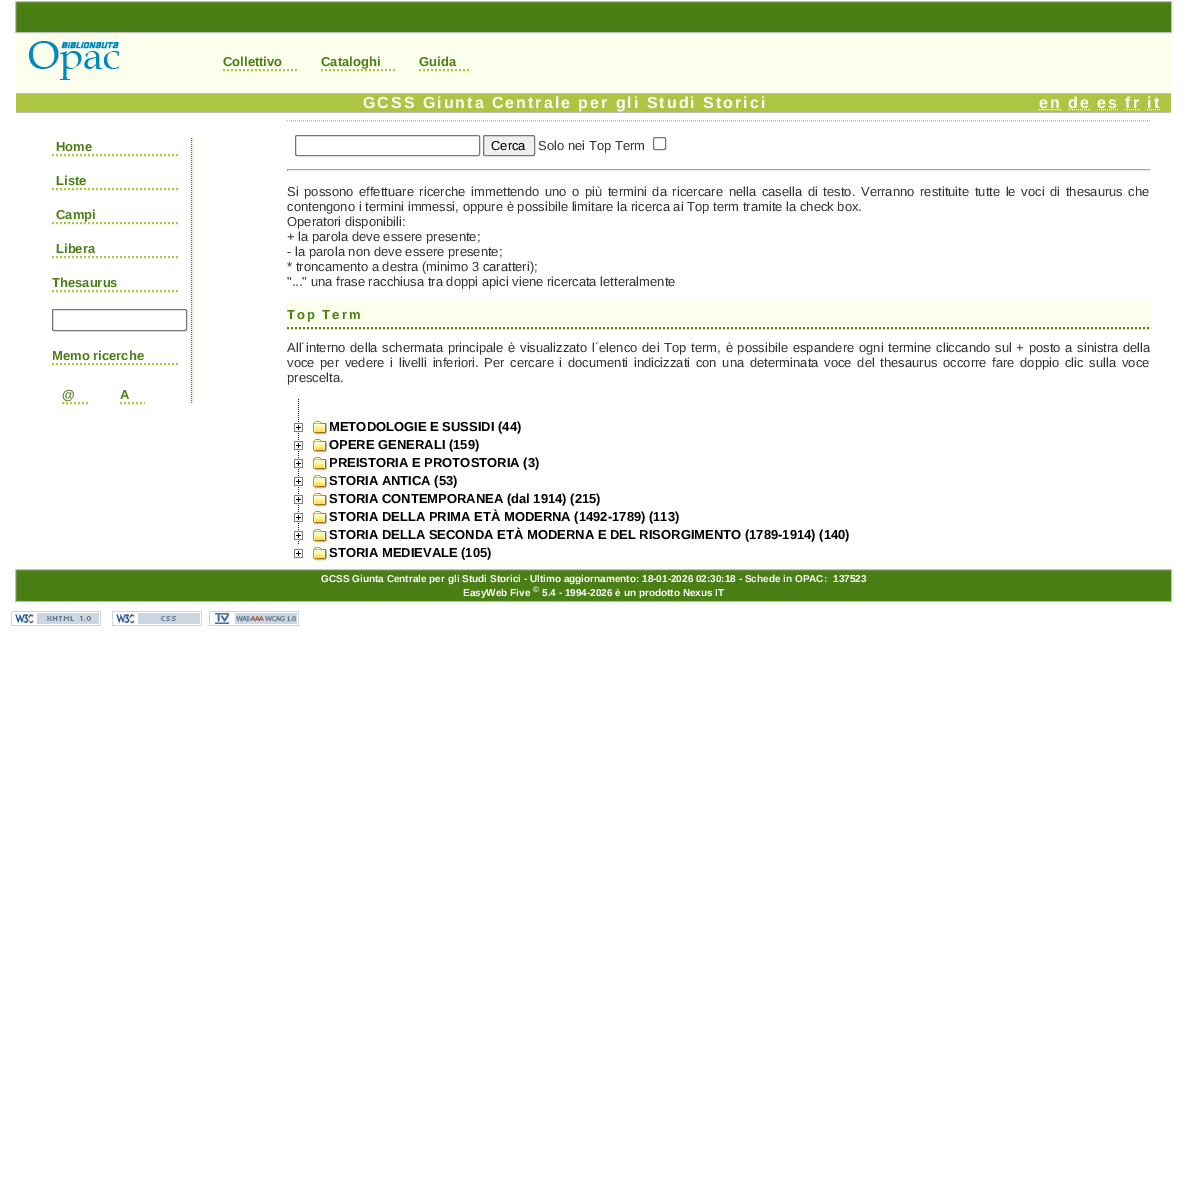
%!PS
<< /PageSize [1187 1197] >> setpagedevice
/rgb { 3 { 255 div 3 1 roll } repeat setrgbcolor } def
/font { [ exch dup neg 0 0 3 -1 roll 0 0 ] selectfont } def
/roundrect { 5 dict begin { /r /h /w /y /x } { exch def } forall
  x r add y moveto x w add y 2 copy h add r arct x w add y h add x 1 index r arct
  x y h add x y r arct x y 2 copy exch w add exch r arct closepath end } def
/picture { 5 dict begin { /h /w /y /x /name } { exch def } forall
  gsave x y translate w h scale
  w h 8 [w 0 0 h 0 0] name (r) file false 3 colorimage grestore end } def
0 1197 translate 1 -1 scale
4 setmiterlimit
255 255 255 rgb
0 0 1187 1197 rectfill
74 127 21 rgb
15.5 1.5 moveto 1171.5 1.5 lineto 1171.5 32.5 lineto 15.5 32.5 lineto closepath gsave fill grestore
192 192 192 rgb
stroke
251 255 236 rgb
16 34 1155 58 rectfill
(img/1.rgb) 28 41 92 39 picture
172 198 67 rgb
2 setlinewidth
[2 2] 0 setdash
223 70 moveto 297 70 lineto stroke
321 70 moveto 395 70 lineto stroke
419 70 moveto 471 70 lineto stroke
[
  [16 94 1155 18 172 198 67]
  [16 93 1155 1 192 192 192]
  [16 112 1155 1 192 192 192]
] { aload pop rgb rectfill } forall
255 255 255 rgb
1 setlinewidth
[1 1] 0 setdash
1038.5 109.5 moveto 1061.5 109.5 lineto stroke
1068 109.5 moveto 1090.5 109.5 lineto 1097 109.5 moveto 1119 109.5 lineto stroke
1125 109.5 moveto 1141 109.5 lineto 1147 109.5 moveto 1161 109.5 lineto stroke
74 127 21 rgb
191.5 138 moveto 191.5 403 lineto stroke
172 198 67 rgb
2 setlinewidth
[2 2] 0 setdash
52 155 moveto 180 155 lineto stroke
52 189 moveto 180 189 lineto stroke
52 223 moveto 180 223 lineto stroke
52 257 moveto 180 257 lineto stroke
52 291 moveto 180 291 lineto stroke
118 118 118 rgb
1 setlinewidth
[] 0 setdash
52.5 309.5 134 21 1.5 roundrect stroke
172 198 67 rgb
2 setlinewidth
[2 2] 0 setdash
52 364 moveto 180 364 lineto stroke
62 403 moveto 90 403 lineto stroke
120 403 moveto 145 403 lineto stroke
1 setlinewidth
[1 1] 0 setdash
287 120.5 moveto 1151 120.5 lineto stroke
118 118 118 rgb
[] 0 setdash
295.5 135.5 184 20 1.5 roundrect stroke
239 239 239 rgb
483.5 135.5 51 20 1.5 roundrect gsave fill grestore
118 118 118 rgb
stroke
653.5 137.5 12 12 1.5 roundrect stroke
[
  [287 169 864 1 159 159 159]
  [1150 169 1 2 238 238 238]
  [287 170 864 1 238 238 238]
  [287 169 1 2 159 159 159]
  [287 302 864 27 251 255 236]
] { aload pop rgb rectfill } forall
74 127 21 rgb
2 setlinewidth
[2 2] 0 setdash
287 328 moveto 1151 328 lineto stroke
(img/2.rgb) 298 399 1 145 picture
(img/3.rgb) 294 423 9 9 picture
(img/4.rgb) 313 421 14 14 picture
(img/3.rgb) 294 441 9 9 picture
(img/4.rgb) 313 439 14 14 picture
(img/3.rgb) 294 459 9 9 picture
(img/4.rgb) 313 457 14 14 picture
(img/3.rgb) 294 477 9 9 picture
(img/4.rgb) 313 475 14 14 picture
(img/3.rgb) 294 495 9 9 picture
(img/4.rgb) 313 493 14 14 picture
(img/3.rgb) 294 513 9 9 picture
(img/4.rgb) 313 511 14 14 picture
(img/3.rgb) 294 531 9 9 picture
(img/4.rgb) 313 529 14 14 picture
(img/3.rgb) 294 549 9 9 picture
(img/4.rgb) 313 547 14 14 picture
15.5 569.5 moveto 1171.5 569.5 lineto 1171.5 601.5 lineto 15.5 601.5 lineto closepath gsave fill grestore
192 192 192 rgb
1 setlinewidth
[] 0 setdash
stroke
(img/5.rgb) 11 611 90 15 picture
(img/6.rgb) 112 611 90 15 picture
(img/7.rgb) 209 611 90 15 picture
/LiberationSans-Bold 13 font
74 127 21 rgb
[
  [(Collettivo) 223 66]
  [(Cataloghi) 321 66]
  [(Guida) 419 66]
] { aload pop moveto show } forall
/LiberationSans-Bold 16 font
255 255 255 rgb
363 108 moveto 2 0 (GCSS Giunta Centrale per gli Studi Storici) ashow
1039 108 moveto 2 0 (en de es fr it) ashow
/LiberationSans-Bold 13 font
74 127 21 rgb
[
  [(Home) 56 151]
  [(Liste) 56 185]
  [(Campi) 56 219]
  [(Libera) 56 253]
  [(Thesaurus) 52 287]
  [(Memo ricerche) 52 360]
  [(@) 62 399]
  [(A) 120 399]
] { aload pop moveto show } forall
/LiberationSans-Regular 13 font
0 0 0 rgb
491 150 moveto (Cerca) show
51 51 51 rgb
538 150 moveto (Solo nei Top Term) show
287 196 moveto 2 0 32 (Si possono effettuare ricerche immettendo uno o più termini da ricercare nella casella di testo. Verranno restituite tutte le voci di thesaurus che) widthshow
[
  [(contengono i termini immessi, oppure è possibile limitare la ricerca ai Top term tramite la check box.) 287 211]
  [(Operatori disponibili:) 287 226]
  [(+ la parola deve essere presente;) 287 241]
  [(- la parola non deve essere presente;) 287 256]
  [(* troncamento a destra \(minimo 3 caratteri\);) 287 271]
  [("..." una frase racchiusa tra doppi apici viene ricercata letteralmente) 287 286]
] { aload pop moveto show } forall
/LiberationSans-Bold 13 font
74 127 21 rgb
287 319 moveto 2 0 (Top Term) ashow
/LiberationSans-Regular 13 font
51 51 51 rgb
287 352 moveto 1.1 0 32 (All´interno della schermata principale è visualizzato l´elenco dei Top term, è possibile espandere ogni termine cliccando sul + posto a sinistra della) widthshow
287 367 moveto 2.1 0 32 (voce per vedere i livelli inferiori. Per cercare i documenti indicizzati con una determinata voce del thesaurus occorre fare doppio clic sulla voce) widthshow
287 382 moveto (prescelta.) show
/LiberationSans-Bold 13 font
0 0 0 rgb
[
  [(METODOLOGIE E SUSSIDI \(44\)) 329 431]
  [(OPERE GENERALI \(159\)) 329 449]
  [(PREISTORIA E PROTOSTORIA \(3\)) 329 467]
  [(STORIA ANTICA \(53\)) 329 485]
  [(STORIA CONTEMPORANEA \(dal 1914\) \(215\)) 329 503]
  [(STORIA DELLA PRIMA ETÀ MODERNA \(1492-1789\) \(113\)) 329 521]
  [(STORIA DELLA SECONDA ETÀ MODERNA E DEL RISORGIMENTO \(1789-1914\) \(140\)) 329 539]
  [(STORIA MEDIEVALE \(105\)) 329 557]
] { aload pop moveto show } forall
/LiberationSans-Bold 10 font
255 255 255 rgb
[
  [(GCSS Giunta Centrale per gli Studi Storici - Ultimo aggiornamento: 18-01-2026 02:30:18 - Schede in OPAC:) 321 582]
  [(137523) 833 582]
  [(EasyWeb Five) 463 596]
] { aload pop moveto show } forall
/LiberationSans-Bold 8 font
533 592 moveto (©) show
/LiberationSans-Bold 10 font
542 596 moveto (5.4 - 1994-2026 è un prodotto Nexus IT) show
showpage
